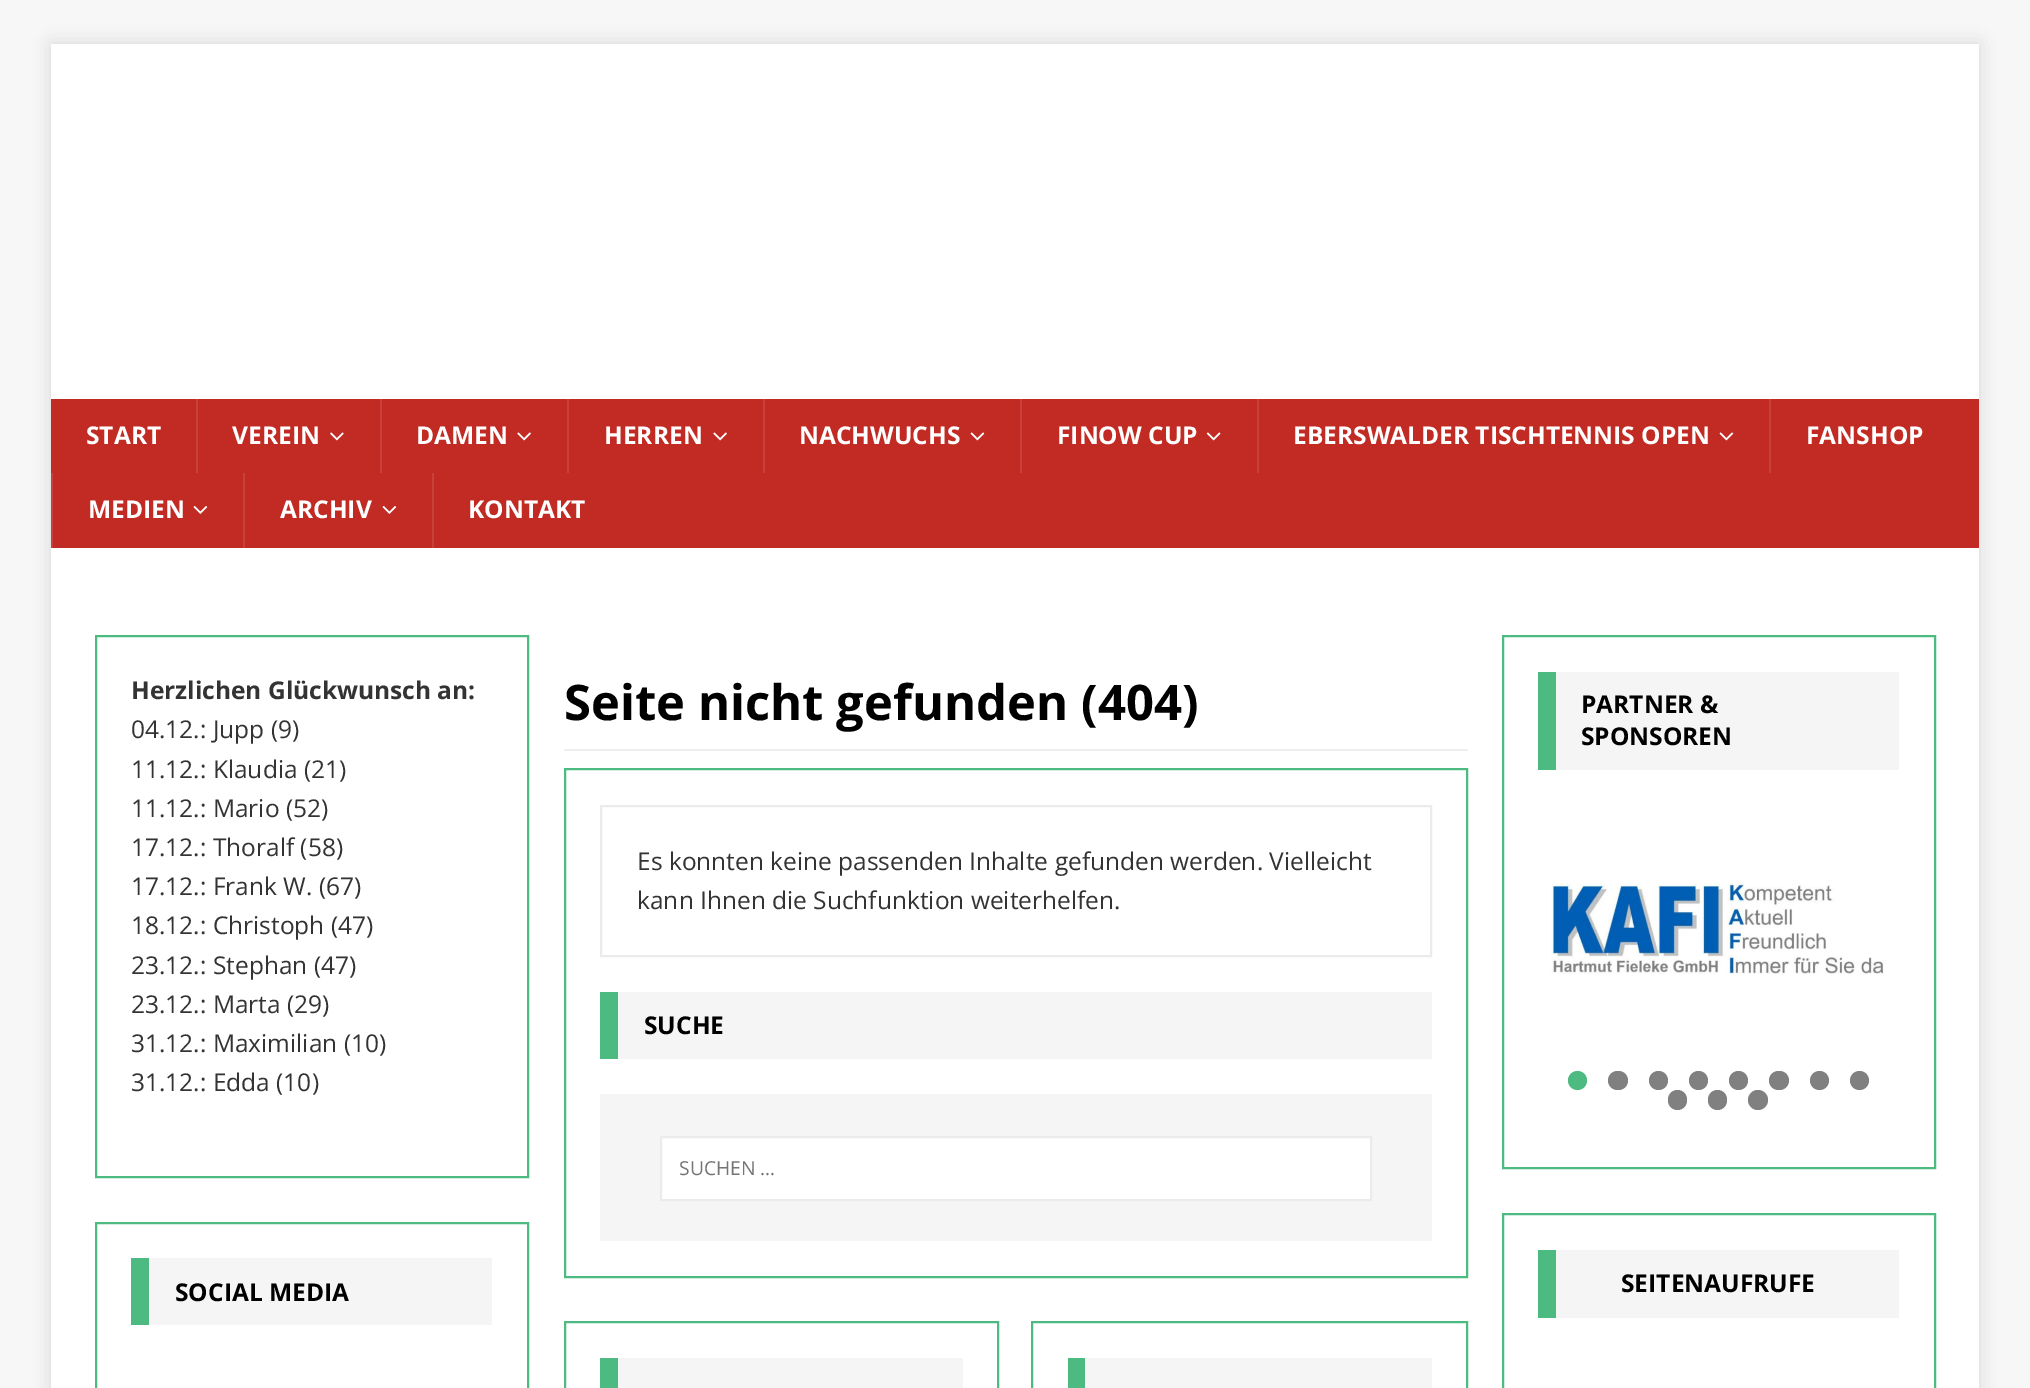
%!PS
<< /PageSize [2030 1388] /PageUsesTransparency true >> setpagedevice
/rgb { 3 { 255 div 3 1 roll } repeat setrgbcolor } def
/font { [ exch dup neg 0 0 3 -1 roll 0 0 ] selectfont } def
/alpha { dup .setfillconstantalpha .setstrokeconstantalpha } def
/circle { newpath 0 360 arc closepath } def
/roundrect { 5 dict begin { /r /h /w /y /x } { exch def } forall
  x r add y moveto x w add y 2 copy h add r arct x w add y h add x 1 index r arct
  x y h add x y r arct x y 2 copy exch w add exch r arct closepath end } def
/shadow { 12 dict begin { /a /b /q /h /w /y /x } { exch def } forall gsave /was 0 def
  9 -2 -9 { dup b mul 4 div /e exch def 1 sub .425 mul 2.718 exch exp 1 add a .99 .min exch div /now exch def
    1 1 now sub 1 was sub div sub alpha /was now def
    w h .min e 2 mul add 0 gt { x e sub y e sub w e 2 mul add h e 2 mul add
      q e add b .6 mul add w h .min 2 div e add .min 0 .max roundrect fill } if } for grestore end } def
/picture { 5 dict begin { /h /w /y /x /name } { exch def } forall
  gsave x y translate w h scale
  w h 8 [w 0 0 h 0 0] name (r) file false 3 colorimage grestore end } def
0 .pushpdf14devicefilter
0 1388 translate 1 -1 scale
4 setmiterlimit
247 247 247 rgb
0 0 2030 1388 rectfill
50 50 50 rgb
51 44 1928 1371 0 9 0.17 shadow
[
  [51 44 1928 355 255 255 255]
  [51 399 1928 149 193 43 35]
  [196 399 2 74 199 64 57]
] { aload pop rgb rectfill } forall
(img/1.rgb) 330 432 14 9 picture
380 399 2 74 rectfill
(img/2.rgb) 517 432 14 9 picture
567 399 2 74 rectfill
(img/2.rgb) 713 432 14 9 picture
763 399 2 74 rectfill
(img/3.rgb) 970 432 15 9 picture
1020 399 2 74 rectfill
(img/4.rgb) 1206 432 15 9 picture
1257 399 2 74 rectfill
(img/3.rgb) 1719 432 15 9 picture
1769 399 2 74 rectfill
51 473 2 75 rectfill
(img/5.rgb) 193 506 15 8 picture
243 473 2 75 rectfill
(img/5.rgb) 382 506 15 8 picture
432 473 2 75 rectfill
255 255 255 rgb
51 548 1928 840 rectfill
77 186 129 rgb
2 setlinewidth
96 636 432 541 rectstroke
96 1223 432 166 rectstroke
[
  [149 1258 343 67 245 245 245]
  [131 1258 18 67 77 186 129]
  [564 749 904 2 238 238 238]
] { aload pop rgb rectfill } forall
77 186 129 rgb
565 769 902 508 rectstroke
235 235 235 rgb
601 806 830 150 rectstroke
[
  [618 992 814 67 245 245 245]
  [600 992 18 67 77 186 129]
  [600 1094 832 147 245 245 245]
] { aload pop rgb rectfill } forall
255 255 255 rgb
661 1137 moveto 1371 1137 lineto 1371 1200 lineto 661 1200 lineto closepath gsave fill grestore
235 235 235 rgb
stroke
77 186 129 rgb
565 1322 433 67 rectstroke
245 245 245 rgb
618 1358 345 30 rectfill
77 186 129 rgb
600 1358 18 30 rectfill
1032 1322 435 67 rectstroke
245 245 245 rgb
1085 1358 347 30 rectfill
77 186 129 rgb
1068 1358 17 30 rectfill
1503 636 432 532 rectstroke
245 245 245 rgb
1556 672 343 98 rectfill
77 186 129 rgb
1538 672 18 98 rectfill
(img/6.rgb) 1551 883 333 91 picture
1577.5 1080.5 9.5 circle fill
128 128 128 rgb
1608 1071 20 19 9.5 roundrect fill
1658.5 1080.5 9.5 circle fill
1698.5 1080.5 9.5 circle fill
1738.5 1080.5 9.5 circle fill
1769 1071 20 19 9.5 roundrect fill
1819.5 1080.5 9.5 circle fill
1859.5 1080.5 9.5 circle fill
1668 1090 19 20 9.5 roundrect fill
1708 1090 19 20 9.5 roundrect fill
1758 1100 10 circle fill
77 186 129 rgb
1503 1214 432 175 rectstroke
245 245 245 rgb
1556 1250 343 68 rectfill
77 186 129 rgb
1538 1250 18 68 rectfill
/OpenSans-Bold 24.5 font
255 255 255 rgb
[
  [(START) 86 444]
  [(VEREIN) 232 444]
  [(DAMEN) 416 444]
  [(HERREN) 604 444]
  [(NACHWUCHS) 799 444]
  [(FINOW CUP) 1057 444]
  [(EBERSWALDER TISCHTENNIS OPEN) 1293 444]
  [(FANSHOP) 1806 444]
  [(MEDIEN) 88 518]
  [(ARCHIV) 280 518]
  [(KONTAKT) 468 518]
] { aload pop moveto show } forall
51 51 51 rgb
131 699 moveto (Herzlichen Glückwunsch an:) show
/OpenSans-Regular 24.5 font
[
  [(04.12.: Jupp \(9\)) 131 738]
  [(11.12.: Klaudia \(21\)) 131 778]
  [(11.12.: Mario \(52\)) 131 817]
  [(17.12.: Thoralf \(58\)) 131 856]
  [(17.12.: Frank W. \(67\)) 131 895]
  [(18.12.: Christoph \(47\)) 131 934]
  [(23.12.: Stephan \(47\)) 131 974]
  [(23.12.: Marta \(29\)) 131 1013]
  [(31.12.: Maximilian \(10\)) 131 1052]
  [(31.12.: Edda \(10\)) 131 1091]
] { aload pop moveto show } forall
/OpenSans-Bold 24.5 font
0 0 0 rgb
175 1301 moveto (SOCIAL MEDIA) show
/OpenSans-Bold 49 font
564 720 moveto (Seite nicht gefunden \(404\)) show
/OpenSans-Regular 24.5 font
51 51 51 rgb
637 870 moveto (Es konnten keine passenden Inhalte gefunden werden. Vielleicht) show
637 909 moveto (kann Ihnen die Suchfunktion weiterhelfen.) show
/OpenSans-Bold 24.5 font
0 0 0 rgb
644 1034 moveto (SUCHE) show
/OpenSans-Regular 19.25 font
117 117 117 rgb
679 1175 moveto (SUCHEN …) show
/OpenSans-Bold 24.5 font
0 0 0 rgb
[
  [(PARTNER &) 1581 713]
  [(SPONSOREN) 1581 745]
  [(SEITENAUFRUFE) 1621 1292]
] { aload pop moveto show } forall
.poppdf14devicefilter showpage
